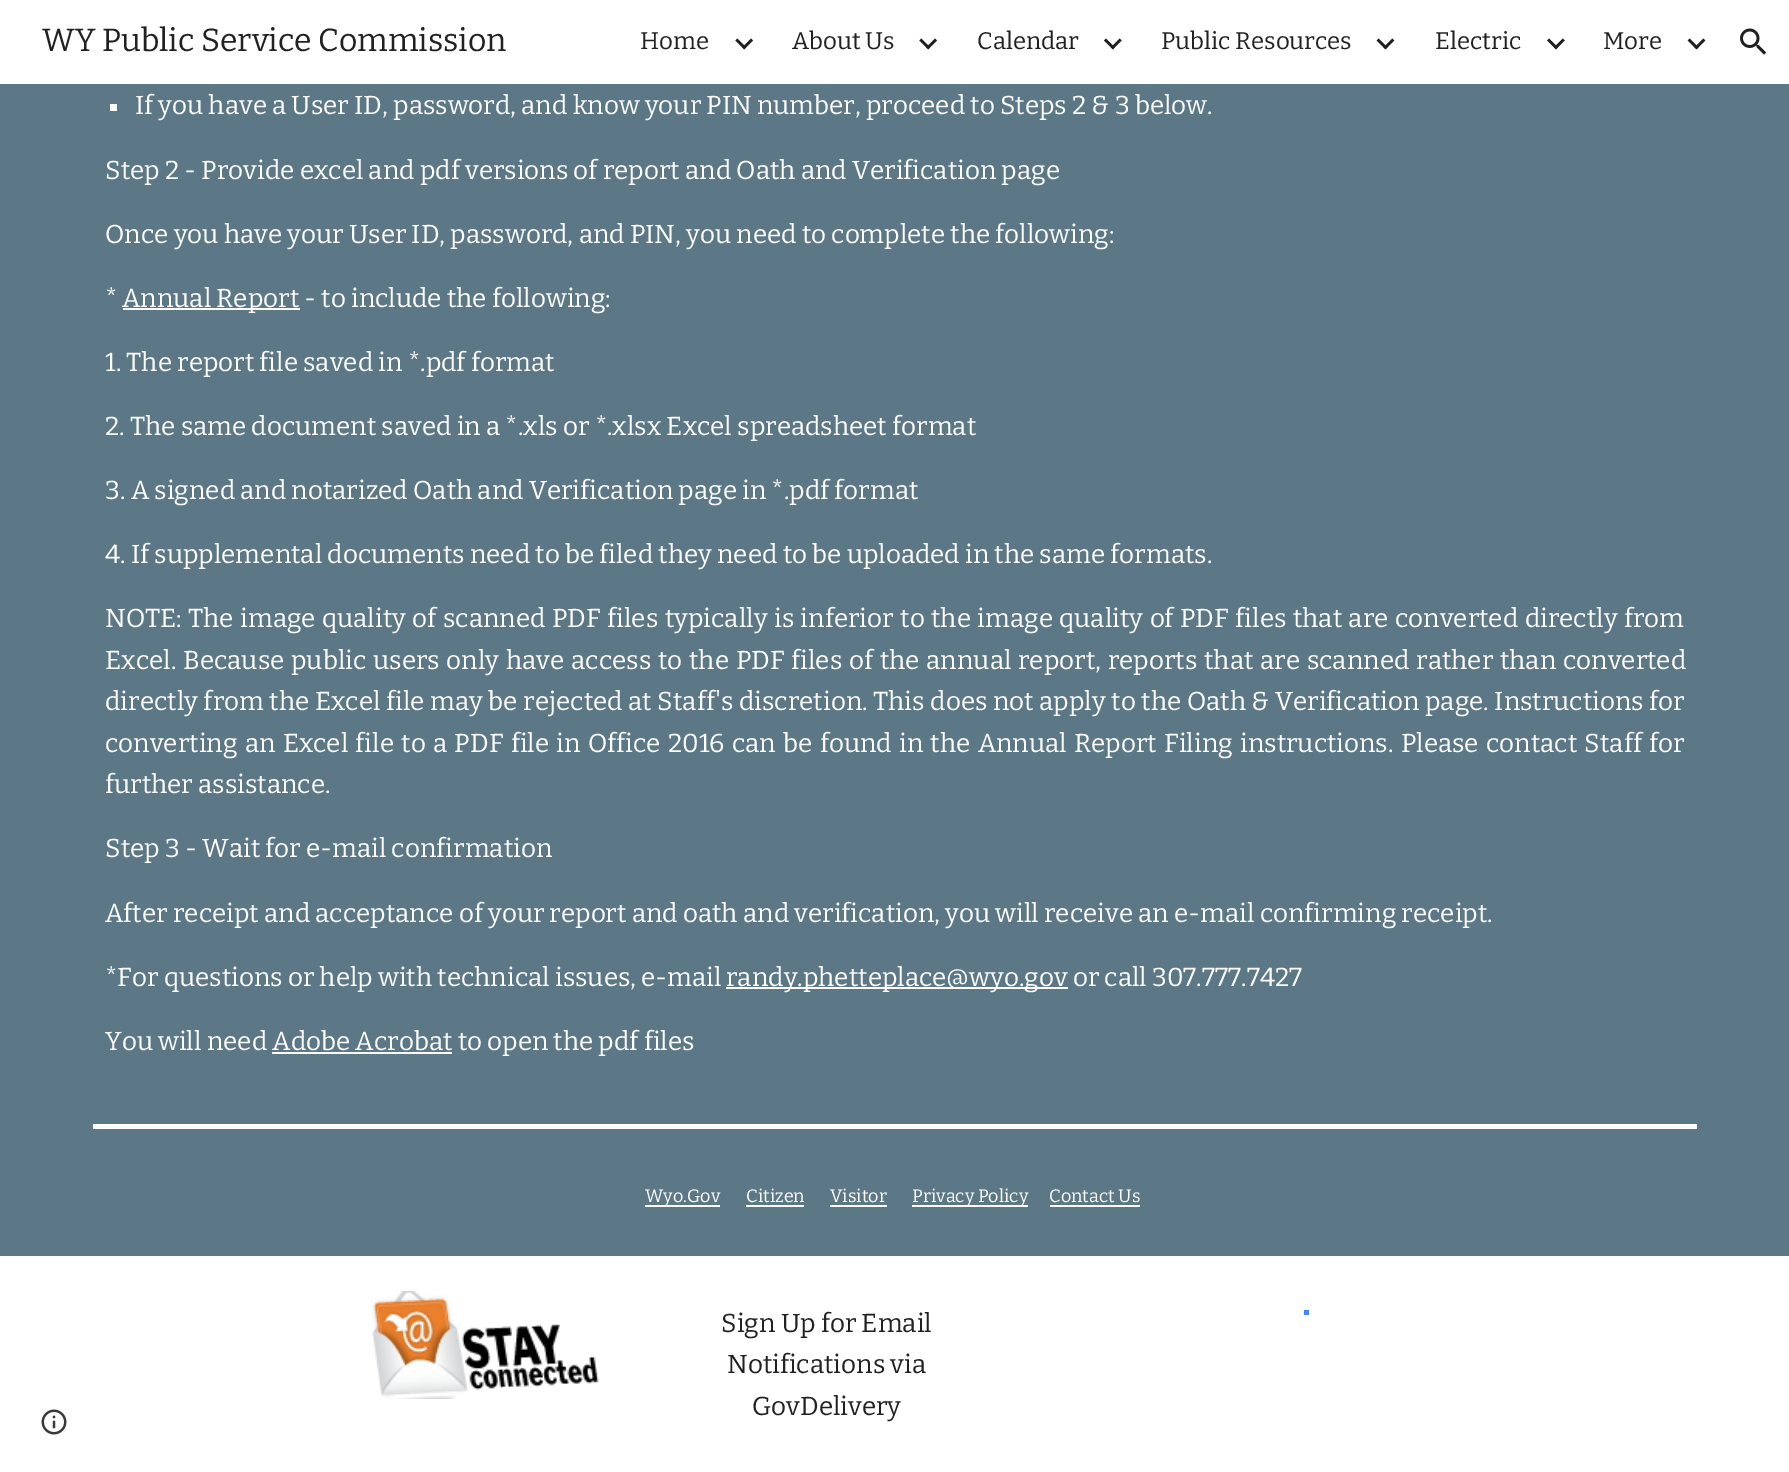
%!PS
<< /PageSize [1789 1472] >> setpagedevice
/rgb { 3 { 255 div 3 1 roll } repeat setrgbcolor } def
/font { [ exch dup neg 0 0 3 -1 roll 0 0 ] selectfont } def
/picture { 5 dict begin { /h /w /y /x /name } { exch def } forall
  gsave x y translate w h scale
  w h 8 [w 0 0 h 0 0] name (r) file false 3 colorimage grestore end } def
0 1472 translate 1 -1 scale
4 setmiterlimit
255 255 255 rgb
0 0 1789 1472 rectfill
(img/1.rgb) 735 38 19 12 picture
(img/2.rgb) 919 38 18 12 picture
(img/3.rgb) 1103 38 19 12 picture
(img/4.rgb) 1376 38 19 12 picture
(img/5.rgb) 1547 38 18 12 picture
(img/6.rgb) 1687 38 19 12 picture
(img/7.rgb) 1740 28 27 27 picture
(img/8.rgb) 41 1409 26 26 picture
[
  [0 84 1789 1172 92 120 135]
  [110 104 7 7 255 255 255]
  [123 308 177 2 255 255 255]
  [726 987 342 2 255 255 255]
  [272 1052 180 2 255 255 255]
  [93 1124 1604 5 255 255 255]
  [645 1205 75 2 255 255 255]
  [746 1205 58 2 255 255 255]
  [830 1205 57 2 255 255 255]
  [912 1205 116 2 255 255 255]
  [1050 1205 90 2 255 255 255]
] { aload pop rgb rectfill } forall
(img/9.rgb) 372 1291 227 108 picture
gsave
1286 1310 21 42 rectclip
68 134 244 rgb
4.5 setlinewidth
1304.5 1312.5 moveto 1308 1312 1312 1313 1315 1314.5 curveto 1331 1323.5 1326 1348 1307.5 1349.5 curveto stroke
grestore
gsave
1304 1310 5 42 rectclip
68 134 244 rgb
4.5 setlinewidth
1293 1344 moveto 1289.5 1340.5 1288 1335.5 1288 1330.5 curveto 1288 1308 1320.5 1305 1325 1327 curveto 1326 1333 1324 1339.5 1320 1344 curveto stroke
grestore
gsave
1307 1310 21 42 rectclip
68 134 244 rgb
4.5 setlinewidth
1304.5 1349.5 moveto 1301 1349.5 1297.5 1348 1294.5 1345.5 curveto 1280 1334 1289.5 1311 1307.5 1312.5 curveto stroke
grestore
gsave
1304 1310 5 42 rectclip
68 134 244 rgb
4.5 setlinewidth
1293 1344 moveto 1289.5 1340.5 1288 1335.5 1288 1330.5 curveto 1288 1308 1320.5 1305 1325 1327 curveto 1326 1333 1324 1339.5 1320 1344 curveto stroke
grestore
gsave
1307 1310 21 42 rectclip
68 134 244 rgb
4.5 setlinewidth
1304.5 1349.5 moveto 1301 1349.5 1297.5 1348 1294.5 1345.5 curveto 1280 1334 1289.5 1311 1307.5 1312.5 curveto stroke
grestore
gsave
1304 1310 5 42 rectclip
68 134 244 rgb
4.5 setlinewidth
1293 1344 moveto 1289.5 1340.5 1288 1335.5 1288 1330.5 curveto 1288 1308 1320.5 1305 1325 1327 curveto 1326 1333 1324 1339.5 1320 1344 curveto stroke
grestore
gsave
1307 1310 21 42 rectclip
68 134 244 rgb
4.5 setlinewidth
1304.5 1349.5 moveto 1301 1349.5 1297.5 1348 1294.5 1345.5 curveto 1280 1334 1289.5 1311 1307.5 1312.5 curveto stroke
grestore
gsave
1304 1310 5 42 rectclip
68 134 244 rgb
4.5 setlinewidth
1293 1344 moveto 1289.5 1340.5 1288 1335.5 1288 1330.5 curveto 1288 1308 1320.5 1305 1325 1327 curveto 1326 1333 1324 1339.5 1320 1344 curveto stroke
grestore
gsave
1307 1310 21 42 rectclip
68 134 244 rgb
4.5 setlinewidth
1304.5 1349.5 moveto 1301 1349.5 1297.5 1348 1294.5 1345.5 curveto 1280 1334 1289.5 1311 1307.5 1312.5 curveto stroke
grestore
/Bitter-Regular 32 font
33 33 33 rgb
42 51 moveto (WY Public Service Commission) show
/Bitter-Regular 24 font
[
  [(Home) 640 49]
  [(About Us) 792 49]
  [(Calendar) 977 49]
  [(Public Resources) 1161 49]
  [(Electric) 1435 49]
  [(More) 1603 49]
] { aload pop moveto show } forall
/Bitter-Regular 26 font
255 255 255 rgb
[
  [(If you have a User ID, password, and know your PIN number, proceed to Steps 2 & 3 below.) 135 114]
  [(Step 2 - Provide excel and pdf versions of report and Oath and Verification page) 105 179]
  [(Once you have your User ID, password, and PIN, you need to complete the following:) 105 243]
  [(*) 105 307]
  [(Annual Report - to include the following:) 122 307]
  [(1. The report file saved in *.pdf format) 105 371]
  [(2. The same document saved in a *.xls or *.xlsx Excel spreadsheet format) 105 435]
  [(3. A signed and notarized Oath and Verification page in *.pdf format) 105 499]
  [(4. If supplemental documents need to be filed they need to be uploaded in the same formats.) 105 563]
  [(NOTE:) 105 627]
] { aload pop moveto show } forall
188 627 moveto 1.3 0 32 (The image quality of scanned PDF files typically is inferior to the image quality of PDF files that are converted directly from) widthshow
105 669 moveto 1.6 0 32 (Excel. Because public users only have access to the PDF files of the annual report, reports that are scanned rather than converted) widthshow
105 710 moveto 0.4 0 32 (directly from the Excel file may be rejected at Staff's discretion. This does not apply to the Oath & Verification page. Instructions for) widthshow
105 752 moveto 2.1 0 32 (converting an Excel file to a PDF file in Office 2016 can be found in the Annual Report Filing instructions. Please contact Staff for) widthshow
[
  [(further assistance.) 105 793]
  [(Step 3 - Wait for e-mail confirmation) 105 857]
  [(After receipt and acceptance of your report and oath and verification, you will receive an e-mail confirming receipt.) 105 922]
  [(*For questions or help with technical issues, e-mail) 105 986]
  [(randy.phetteplace@wyo.gov or call 307.777.7427) 726 986]
  [(You will need Adobe Acrobat to open the pdf files) 105 1050]
] { aload pop moveto show } forall
/Bitter-Regular 18 font
[
  [(Wyo.Gov) 645 1202]
  [(Citizen) 746 1202]
  [(Visitor) 830 1202]
  [(Privacy Policy) 912 1202]
  [(Contact Us) 1049 1202]
] { aload pop moveto show } forall
/Bitter-Regular 26 font
33 33 33 rgb
[
  [(Sign Up for Email) 721 1332]
  [(Notifications via) 727 1373]
  [(GovDelivery) 752 1415]
] { aload pop moveto show } forall
showpage
